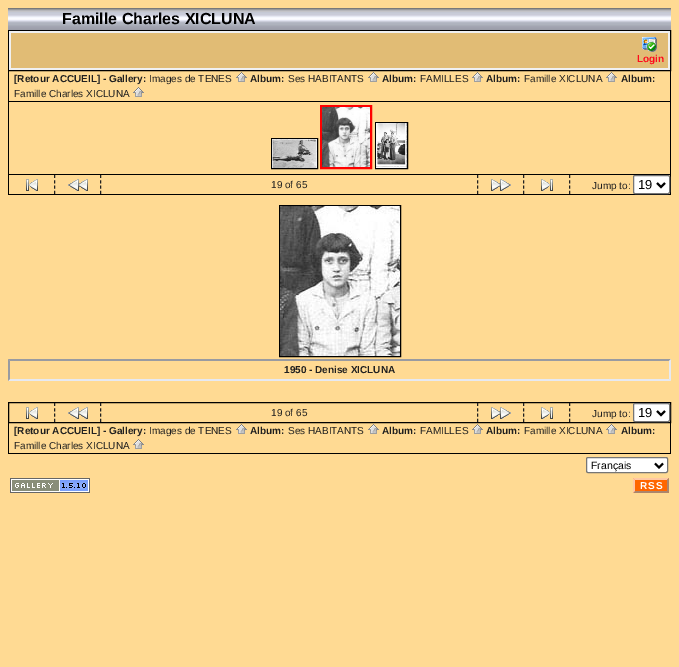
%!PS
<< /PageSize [679 667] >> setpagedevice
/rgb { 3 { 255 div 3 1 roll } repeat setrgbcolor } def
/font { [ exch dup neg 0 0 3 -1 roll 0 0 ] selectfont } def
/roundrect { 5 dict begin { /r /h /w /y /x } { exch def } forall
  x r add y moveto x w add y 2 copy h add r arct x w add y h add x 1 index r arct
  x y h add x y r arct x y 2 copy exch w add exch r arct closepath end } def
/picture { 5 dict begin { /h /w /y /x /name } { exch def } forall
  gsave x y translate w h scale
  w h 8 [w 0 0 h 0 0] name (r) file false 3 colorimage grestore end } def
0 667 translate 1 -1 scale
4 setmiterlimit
255 218 147 rgb
0 0 679 667 rectfill
(img/1.rgb) 8 8 663 22 picture
0 0 0 rgb
8.5 30.5 662 40 rectstroke
240 240 240 rgb
9 31 661 39 rectfill
225 188 117 rgb
11 33 657 35 rectfill
(img/2.rgb) 642 37 15 15 picture
[
  [670 71 1 124 0 0 0]
  [8 101 663 1 0 0 0]
  [8 71 1 31 0 0 0]
] { aload pop rgb rectfill } forall
(img/3.rgb) 236 72 11 10 picture
(img/3.rgb) 368 72 11 10 picture
(img/3.rgb) 472 72 11 10 picture
(img/3.rgb) 606 72 11 10 picture
(img/3.rgb) 133 87 11 10 picture
8 174 663 1 rectfill
8 102 1 73 rectfill
255 0 0 rgb
2 setlinewidth
321 106 50 62 rectstroke
(img/4.rgb) 322 107 48 60 picture
0 0 0 rgb
1 setlinewidth
375.5 122.5 32 46 rectstroke
271.5 138.5 46 30 rectstroke
(img/5.rgb) 376 123 31 45 picture
(img/6.rgb) 272 139 45 29 picture
8 194 663 1 rectfill
8 175 1 20 rectfill
32 32 32 rgb
[3 2.33] 0 setdash
54.5 175 moveto 54.5 194 lineto 100.5 175 moveto 100.5 194 lineto stroke
(img/7.rgb) 26 179 12 12 picture
477.5 175 moveto 477.5 194 lineto 523.5 175 moveto 523.5 194 lineto stroke
(img/8.rgb) 491 179 20 12 picture
(img/9.rgb) 68 179 20 12 picture
(img/10.rgb) 541 179 12 12 picture
569.5 175 moveto 569.5 194 lineto stroke
255 255 255 rgb
633.5 175.5 36 18 1.5 roundrect gsave fill grestore
118 118 118 rgb
[] 0 setdash
stroke
0 0 0 rgb
2 setlinewidth
657 183 moveto 661 187 lineto 665 183 lineto stroke
1 setlinewidth
279.5 205.5 121 151 rectstroke
(img/11.rgb) 280 206 120 150 picture
153 155 161 rgb
8 359 moveto 671 359 lineto 669 361 lineto 10 361 lineto closepath fill
230 233 242 rgb
671 359 moveto 671 381 lineto 669 379 lineto 669 361 lineto closepath fill
671 381 moveto 8 381 lineto 10 379 lineto 669 379 lineto closepath fill
153 155 161 rgb
8 381 moveto 8 359 lineto 10 361 lineto 10 379 lineto closepath fill
0 0 0 rgb
8.5 402.5 662 20 rectstroke
32 32 32 rgb
[3 2.33] 0 setdash
54.5 403 moveto 54.5 422 lineto 100.5 403 moveto 100.5 422 lineto stroke
(img/7.rgb) 26 407 12 12 picture
477.5 403 moveto 477.5 422 lineto 523.5 403 moveto 523.5 422 lineto stroke
(img/8.rgb) 491 407 20 12 picture
(img/9.rgb) 68 407 20 12 picture
(img/10.rgb) 541 407 12 12 picture
569.5 403 moveto 569.5 422 lineto stroke
255 255 255 rgb
633.5 403.5 36 18 1.5 roundrect gsave fill grestore
118 118 118 rgb
[] 0 setdash
stroke
0 0 0 rgb
2 setlinewidth
657 411 moveto 661 415 lineto 665 411 lineto stroke
[
  [670 423 1 31 0 0 0]
  [8 453 663 1 0 0 0]
  [8 423 1 31 0 0 0]
] { aload pop rgb rectfill } forall
(img/3.rgb) 236 424 11 10 picture
(img/3.rgb) 368 424 11 10 picture
(img/3.rgb) 472 424 11 10 picture
(img/3.rgb) 606 424 11 10 picture
(img/3.rgb) 133 439 11 10 picture
255 255 255 rgb
586.5 457.5 81 15 1.5 roundrect gsave fill grestore
118 118 118 rgb
1 setlinewidth
stroke
0 0 0 rgb
2 setlinewidth
655 463.5 moveto 659 467.5 lineto 663 463.5 lineto stroke
(img/12.rgb) 10 478 80 15 picture
255 102 0 rgb
633 478 36 15 rectfill
255 200 164 rgb
633 478 moveto 669 478 lineto 667 480 lineto 635 480 lineto closepath fill
170 133 109 rgb
669 478 moveto 669 493 lineto 667 491 lineto 667 480 lineto closepath fill
669 493 moveto 633 493 lineto 635 491 lineto 667 491 lineto closepath fill
255 200 164 rgb
633 493 moveto 633 478 lineto 635 480 lineto 635 491 lineto closepath fill
/LiberationSans-Bold 16 font
0 0 0 rgb
62 24 moveto (Famille Charles XICLUNA) show
/LiberationSans-Bold 10 font
255 10 29 rgb
637 62 moveto (Login) show
32 32 32 rgb
14 82 moveto ([Retour ACCUEIL] - Gallery:) show
/LiberationSans-Regular 10 font
149 82 moveto (Images de TENES) show
/LiberationSans-Bold 10 font
250 82 moveto (Album:) show
/LiberationSans-Regular 10 font
288 82 moveto (Ses HABITANTS) show
/LiberationSans-Bold 10 font
382 82 moveto (Album:) show
/LiberationSans-Regular 10 font
420 82 moveto (FAMILLES) show
/LiberationSans-Bold 10 font
486 82 moveto (Album:) show
/LiberationSans-Regular 10 font
524 82 moveto (Famille XICLUNA) show
/LiberationSans-Bold 10 font
621 82 moveto (Album:) show
/LiberationSans-Regular 10 font
[
  [(Famille Charles XICLUNA) 14 97]
  [(19 of 65) 271 188]
  [(Jump to:) 592 189]
] { aload pop moveto show } forall
/LiberationSans-Regular 13 font
0 0 0 rgb
638 189 moveto (19) show
/LiberationSans-Bold 10 font
32 32 32 rgb
284 373 moveto (1950 - Denise XICLUNA) show
/LiberationSans-Regular 10 font
271 416 moveto (19 of 65) show
592 417 moveto (Jump to:) show
/LiberationSans-Regular 13 font
0 0 0 rgb
638 417 moveto (19) show
/LiberationSans-Bold 10 font
32 32 32 rgb
14 434 moveto ([Retour ACCUEIL] - Gallery:) show
/LiberationSans-Regular 10 font
149 434 moveto (Images de TENES) show
/LiberationSans-Bold 10 font
250 434 moveto (Album:) show
/LiberationSans-Regular 10 font
288 434 moveto (Ses HABITANTS) show
/LiberationSans-Bold 10 font
382 434 moveto (Album:) show
/LiberationSans-Regular 10 font
420 434 moveto (FAMILLES) show
/LiberationSans-Bold 10 font
486 434 moveto (Album:) show
/LiberationSans-Regular 10 font
524 434 moveto (Famille XICLUNA) show
/LiberationSans-Bold 10 font
621 434 moveto (Album:) show
/LiberationSans-Regular 10 font
14 449 moveto (Famille Charles XICLUNA) show
/LiberationSans-Regular 10.5 font
0 0 0 rgb
591 469 moveto (Français) show
/LiberationSans-Bold 10 font
255 255 255 rgb
640 489 moveto 1 0 (RSS) ashow
showpage
